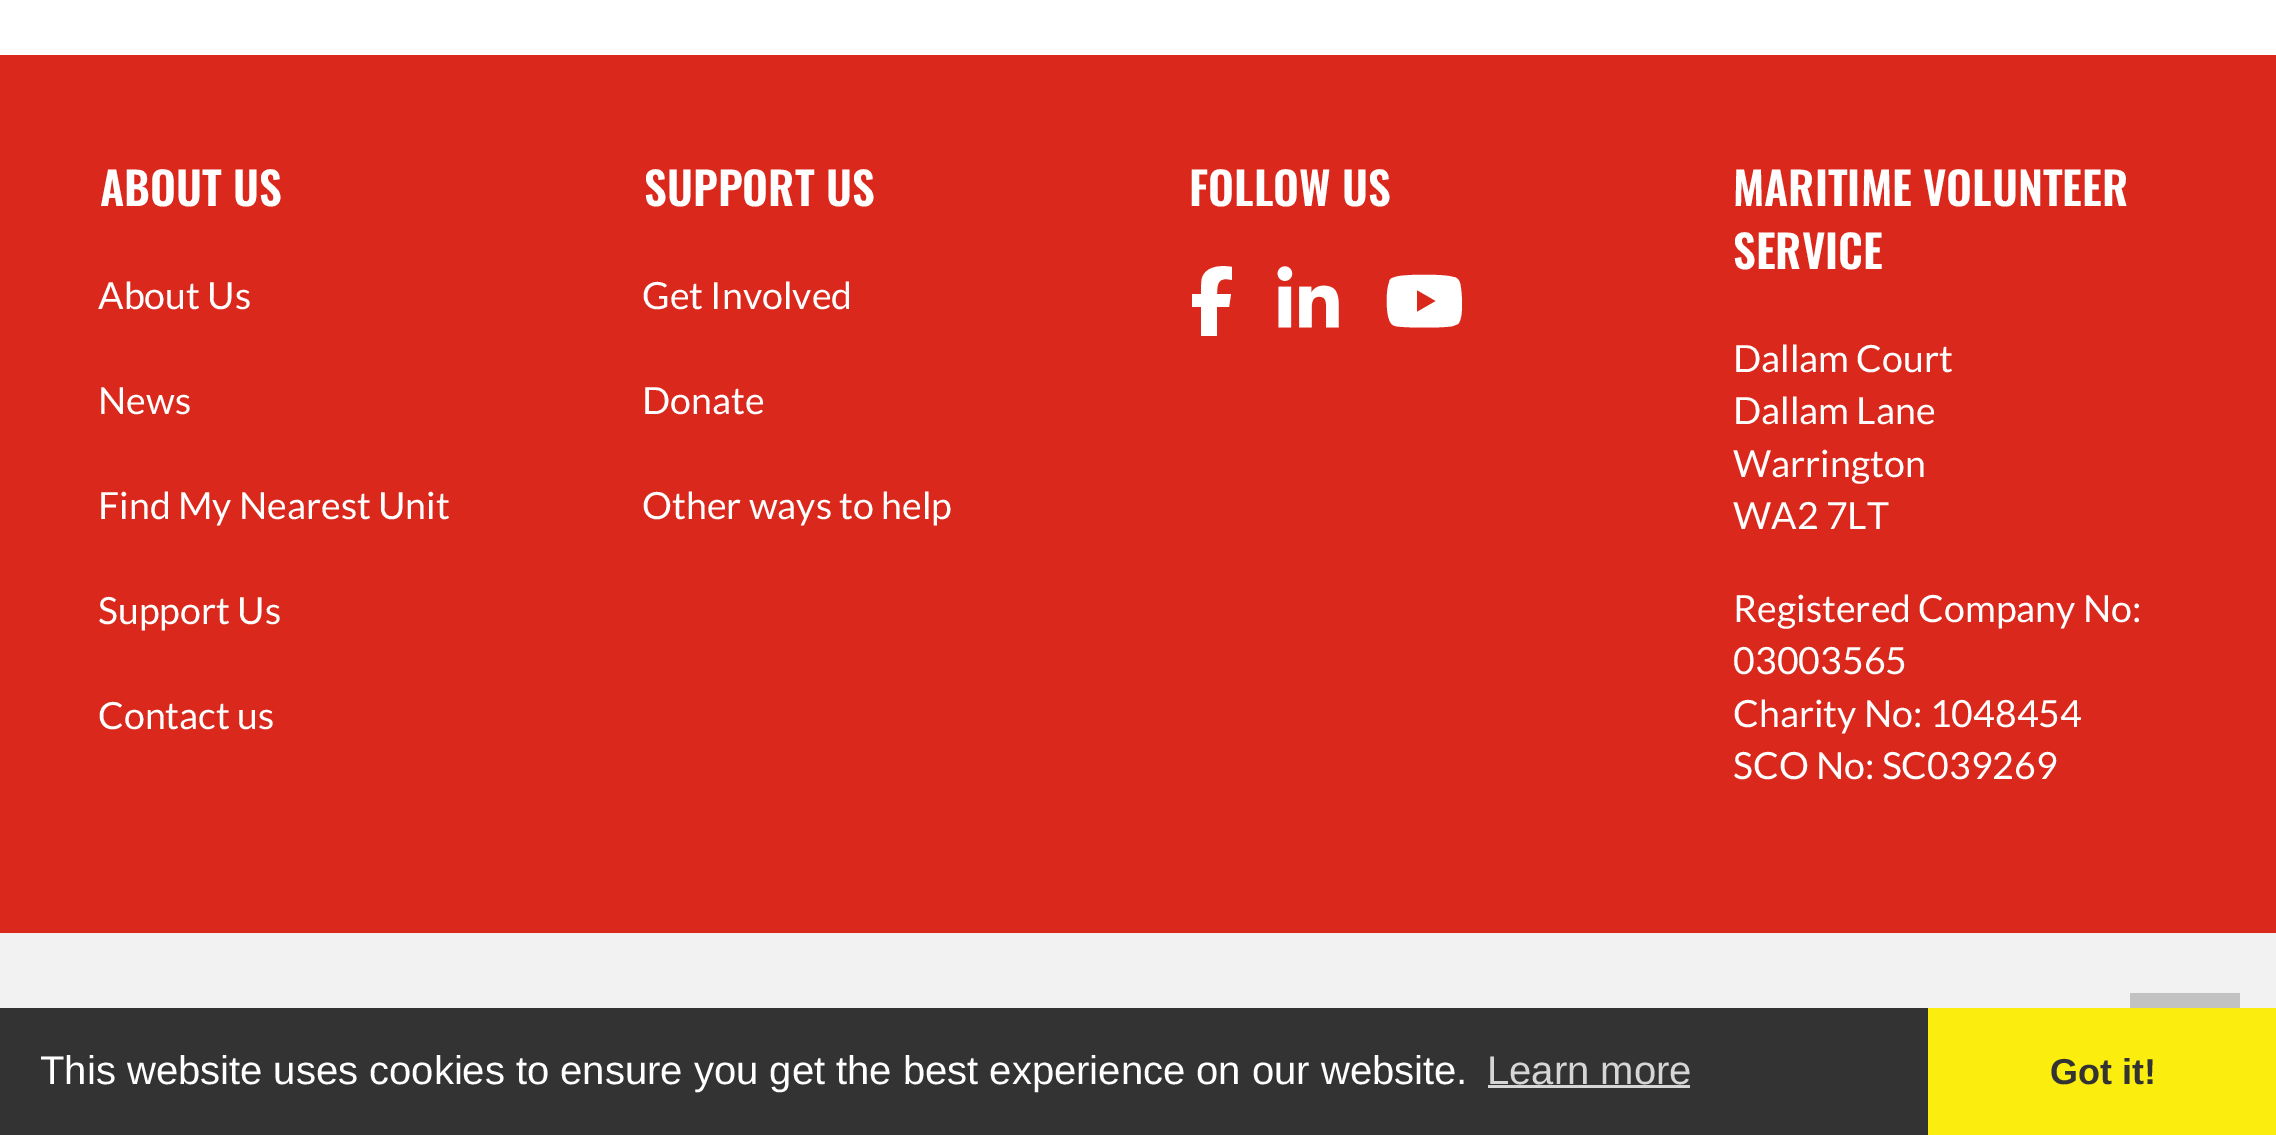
%!PS
<< /PageSize [2276 1135] /PageUsesTransparency true >> setpagedevice
/rgb { 3 { 255 div 3 1 roll } repeat setrgbcolor } def
/font { [ exch dup neg 0 0 3 -1 roll 0 0 ] selectfont } def
/alpha { dup .setfillconstantalpha .setstrokeconstantalpha } def
/picture { 5 dict begin { /h /w /y /x /name } { exch def } forall
  gsave x y translate w h scale
  w h 8 [w 0 0 h 0 0] name (r) file false 3 colorimage grestore end } def
0 .pushpdf14devicefilter
0 1135 translate 1 -1 scale
4 setmiterlimit
242 242 242 rgb
0 0 2276 1135 rectfill
255 255 255 rgb
0 0 2276 55 rectfill
218 41 28 rgb
0 55 2276 878 rectfill
255 255 255 rgb
1201 307 moveto 1201 336 lineto 1201 307 lineto 1201 336 lineto 1217 336 lineto 1217 307 lineto 1229 307 lineto 1231 294 lineto 1217 294 lineto 1217 282 1219 277 1232 280 curveto 1232 267 lineto 1221 265 1206 266 1202 278 curveto 1201 283 1201 289 1201 294 curveto 1192 294 lineto 1192 307 lineto closepath fill
(img/1.rgb) 1277 266 62 62 picture
1460 283 moveto 1459 280 1457 277 1453 277 curveto 1446 274 1403 274 1395 277 curveto 1392 278 lineto 1390 279 1389 281 1389 283 curveto 1386 290 1386 312 1389 319 curveto 1390 323 1392 325 1395 326 curveto 1403 328 1446 328 1453 326 curveto 1458 324 lineto 1464 318 1462 291 1460 283 curveto closepath 1417 312 moveto 1417 290 lineto 1417 312 lineto 1417 290 lineto 1436 301 lineto closepath fill
0.2 alpha
[
  [2130 993 110 15 0 0 0]
] { aload pop rgb rectfill } forall
1 alpha
[
  [0 1008 1928 127 51 51 51]
  [1488 1085 202 3 214 214 214]
  [1928 1008 348 127 251 237 14]
] { aload pop rgb rectfill } forall
/Oswald-SemiBold 45 font
255 255 255 rgb
100 206 moveto (ABOUT US) show
/Lato-Regular 37.5 font
[
  [(About Us) 98 309]
  [(News) 98 414]
  [(Find My Nearest Unit) 98 519]
  [(Support Us) 98 624]
  [(Contact us) 98 729]
] { aload pop moveto show } forall
/Oswald-SemiBold 45 font
644 206 moveto (SUPPORT US) show
/Lato-Regular 37.5 font
[
  [(Get Involved) 642 309]
  [(Donate) 642 414]
  [(Other ways to help) 642 519]
] { aload pop moveto show } forall
/Oswald-SemiBold 45 font
[
  [(FOLLOW US) 1189 206]
  [(MARITIME VOLUNTEER) 1733 206]
  [(SERVICE) 1733 269]
] { aload pop moveto show } forall
/Lato-Regular 37.5 font
[
  [(Dallam Court) 1733 372]
  [(Dallam Lane) 1733 424]
  [(Warrington) 1733 477]
  [(WA2 7LT) 1733 529]
  [(Registered Company No:) 1733 622]
  [(03003565) 1733 674]
  [(Charity No: 1048454) 1733 727]
  [(SCO No: SC039269) 1733 779]
] { aload pop moveto show } forall
/LiberationSans-Regular 40 font
40 1084 moveto (This website uses cookies to ensure you get the best experience on our website.) show
214 214 214 rgb
1487 1084 moveto (Learn more) show
/LiberationSans-Bold 36 font
51 51 51 rgb
2050 1084 moveto (Got it!) show
.poppdf14devicefilter showpage
